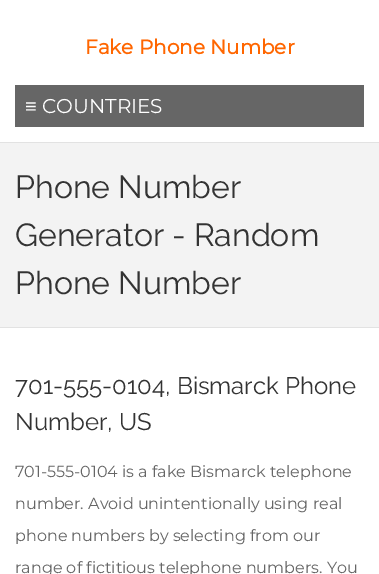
%!PS
<< /PageSize [379 574] >> setpagedevice
/rgb { 3 { 255 div 3 1 roll } repeat setrgbcolor } def
/font { [ exch dup neg 0 0 3 -1 roll 0 0 ] selectfont } def
0 574 translate 1 -1 scale
4 setmiterlimit
255 255 255 rgb
0 0 379 574 rectfill
[
  [15 85 349 42 102 102 102]
  [0 143 379 184 243 243 243]
  [0 142 379 1 226 226 226]
  [0 327 379 1 226 226 226]
] { aload pop rgb rectfill } forall
/Montserrat-Bold 20 font
255 102 0 rgb
85 54 moveto (Fake Phone Number) show
/LiberationSans-Regular 20 font
255 255 255 rgb
25 113 moveto (≡) show
/Montserrat-Thin 20 font
42 113 moveto (COUNTRIES) show
/Raleway-Thin 32 font
51 51 51 rgb
[
  [(Phone Number) 15 198]
  [(Generator - Random) 15 246]
  [(Phone Number) 15 294]
] { aload pop moveto show } forall
/Raleway-Thin 24 font
15 394 moveto (701-555-0104, Bismarck Phone) show
15 430 moveto (Number, US) show
/Montserrat-Thin 16 font
102 102 102 rgb
[
  [(701-555-0104 is a fake Bismarck telephone) 15 477]
  [(number. Avoid unintentionally using real) 15 509]
  [(phone numbers by selecting from our) 15 541]
  [(range of fictitious telephone numbers. You) 15 573]
] { aload pop moveto show } forall
showpage
